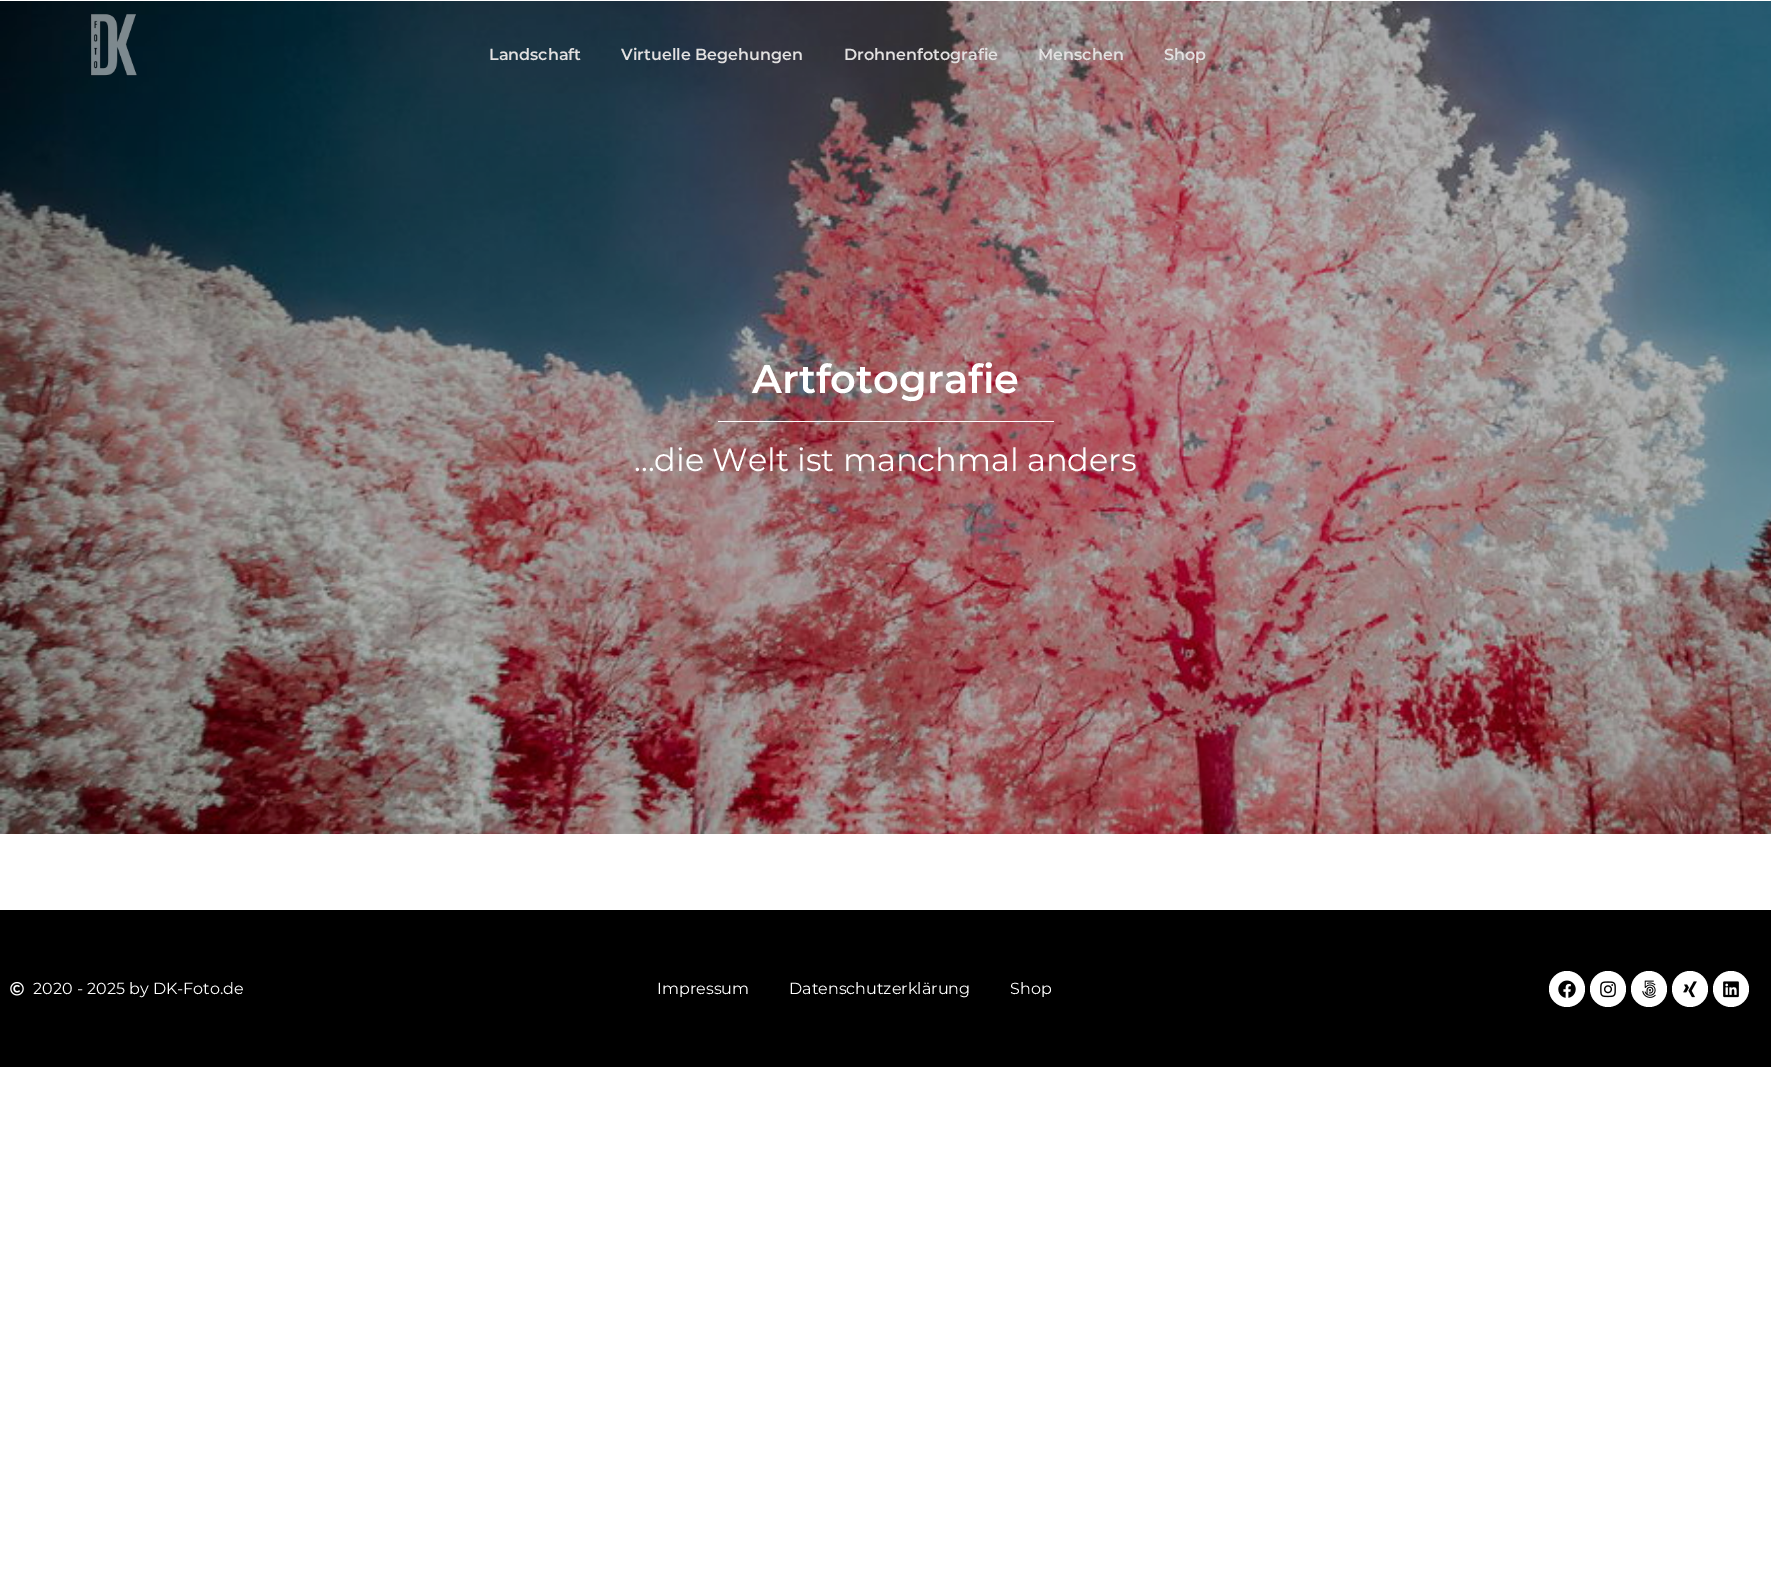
%!PS
<< /PageSize [1771 1572] >> setpagedevice
/rgb { 3 { 255 div 3 1 roll } repeat setrgbcolor } def
/font { [ exch dup neg 0 0 3 -1 roll 0 0 ] selectfont } def
/circle { newpath 0 360 arc closepath } def
/picture { 5 dict begin { /h /w /y /x /name } { exch def } forall
  gsave x y translate w h scale
  w h 8 [w 0 0 h 0 0] name (r) file false 3 colorimage grestore end } def
0 1572 translate 1 -1 scale
4 setmiterlimit
255 255 255 rgb
0 0 1771 1572 rectfill
(img/2.rgb) 0 1 1771 833 picture
(img/1.rgb) 90 14 47 62 picture
718 421 336 1 rectfill
0 0 0 rgb
0 910 1771 157 rectfill
(img/3.rgb) 10 982 14 14 picture
255 255 255 rgb
1567 989 18 circle fill
(img/4.rgb) 1558 980 18 18 picture
1608 989 18 circle fill
(img/5.rgb) 1600 981 16 17 picture
1649 989 18 circle fill
(img/6.rgb) 1642 980 14 18 picture
1690 989 18 circle fill
(img/7.rgb) 1683 981 14 17 picture
1731 989 18 circle fill
(img/8.rgb) 1723 981 16 17 picture
/Montserrat-Thin 16 font
227 225 225 rgb
[
  [(Landschaft) 489 60]
  [(Virtuelle Begehungen) 621 60]
  [(Drohnenfotografie) 844 60]
  [(Menschen) 1038 60]
  [(Shop) 1164 60]
] { aload pop moveto show } forall
/Montserrat-Thin 40 font
255 255 255 rgb
752 393 moveto (Artfotografie) show
/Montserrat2-Thin 32 font
634 471 moveto (...die Welt ist manchmal anders) show
/Montserrat2-Thin 16 font
[
  [(2020 - 2025 by DK-Foto.de) 33 994]
  [(Impressum) 657 994]
  [(Datenschutzerklärung) 789 994]
  [(Shop) 1010 994]
] { aload pop moveto show } forall
showpage
